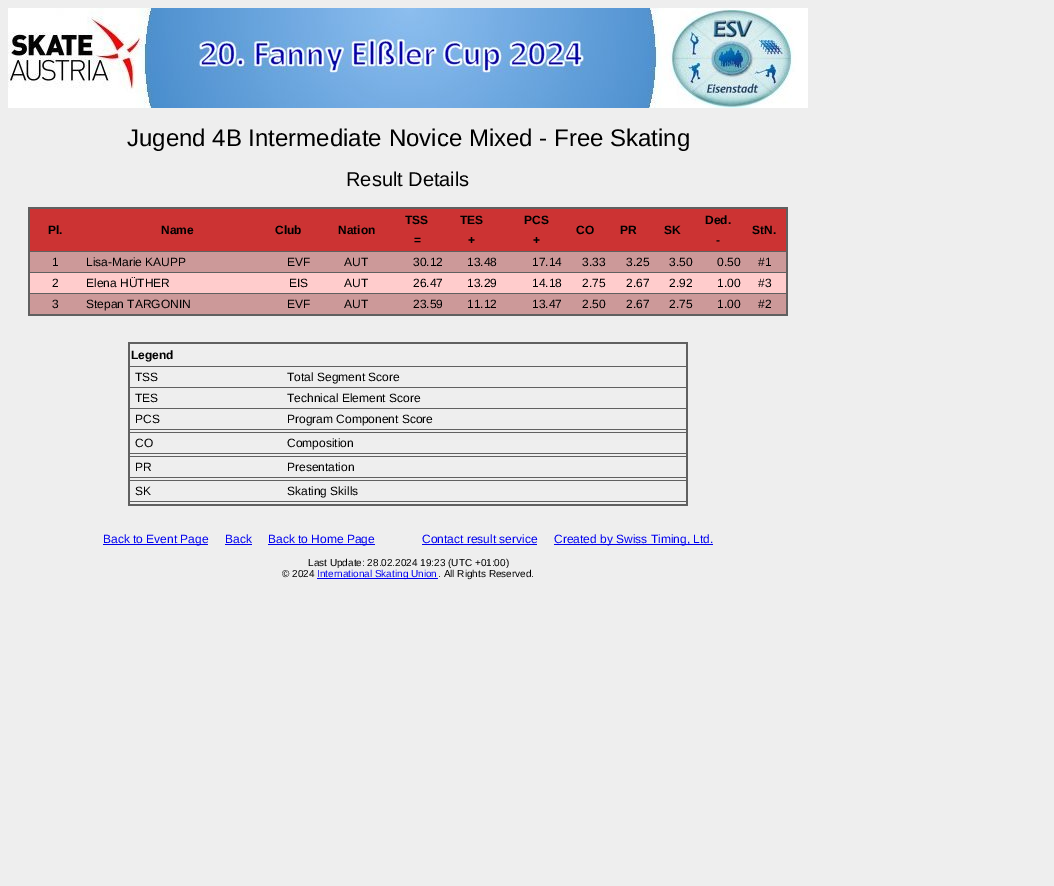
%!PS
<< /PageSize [1054 886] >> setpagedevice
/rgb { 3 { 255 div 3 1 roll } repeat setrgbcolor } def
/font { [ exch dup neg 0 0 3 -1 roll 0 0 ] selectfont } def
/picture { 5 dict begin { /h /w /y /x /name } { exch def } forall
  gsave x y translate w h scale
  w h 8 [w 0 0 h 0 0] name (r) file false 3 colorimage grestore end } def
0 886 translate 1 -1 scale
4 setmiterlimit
238 238 238 rgb
0 0 1054 886 rectfill
(img/1.rgb) 8 8 800 100 picture
[
  [28 207 760 109 96 96 96]
  [30 209 756 42 204 51 51]
  [30 252 756 20 204 153 153]
  [30 273 756 20 255 204 204]
  [30 294 756 20 204 153 153]
  [128 342 560 164 96 96 96]
  [130 344 556 22 238 238 238]
  [130 367 556 20 238 238 238]
  [130 388 556 20 238 238 238]
  [130 409 556 20 238 238 238]
  [130 430 556 2 238 238 238]
  [130 433 556 20 238 238 238]
  [130 454 556 2 238 238 238]
  [130 457 556 20 238 238 238]
  [130 478 556 2 238 238 238]
  [130 481 556 20 238 238 238]
  [130 502 556 2 238 238 238]
  [103 544 105 1 0 0 238]
  [225 544 27 1 0 0 238]
  [268 544 107 1 0 0 238]
  [422 544 115 1 0 0 238]
  [554 544 159 1 0 0 238]
  [317 578 121 1 0 0 238]
] { aload pop rgb rectfill } forall
/LiberationSans-Regular 24 font
0 0 0 rgb
127 146 moveto (Jugend 4B Intermediate Novice Mixed - Free Skating) show
/LiberationSans-Regular 20 font
346 186 moveto (Result Details) show
/LiberationSans-Bold 12 font
[
  [(Pl.) 48 234]
  [(Name) 161 234]
  [(Club) 275 234]
  [(Nation) 338 234]
  [(TSS) 405 224]
  [(=) 414 244]
  [(TES) 460 224]
  [(+) 468 244]
  [(PCS) 524 224]
  [(+) 533 244]
  [(CO) 576 234]
  [(PR) 620 234]
  [(SK) 664 234]
  [(Ded.) 705 224]
  [(-) 716 244]
  [(StN.) 752 234]
] { aload pop moveto show } forall
/LiberationSans-Regular 12 font
[
  [(1) 52 266]
  [(Lisa-Marie KAUPP) 86 266]
  [(EVF) 287 266]
  [(AUT) 344 266]
  [(30.12) 413 266]
  [(13.48) 467 266]
  [(17.14) 532 266]
  [(3.33) 582 266]
  [(3.25) 626 266]
  [(3.50) 669 266]
  [(0.50) 717 266]
  [(#1) 758 266]
  [(2) 52 287]
  [(Elena HÜTHER) 86 287]
  [(EIS) 289 287]
  [(AUT) 344 287]
  [(26.47) 413 287]
  [(13.29) 467 287]
  [(14.18) 532 287]
  [(2.75) 582 287]
  [(2.67) 626 287]
  [(2.92) 669 287]
  [(1.00) 717 287]
  [(#3) 758 287]
  [(3) 52 308]
  [(Stepan TARGONIN) 86 308]
  [(EVF) 287 308]
  [(AUT) 344 308]
  [(23.59) 413 308]
  [(11.12) 467 308]
  [(13.47) 532 308]
  [(2.50) 582 308]
  [(2.67) 626 308]
  [(2.75) 669 308]
  [(1.00) 717 308]
  [(#2) 758 308]
] { aload pop moveto show } forall
/LiberationSans-Bold 12 font
131 359 moveto (Legend) show
/LiberationSans-Regular 12 font
[
  [(TSS) 135 381]
  [(Total Segment Score) 287 381]
  [(TES) 135 402]
  [(Technical Element Score) 287 402]
  [(PCS) 135 423]
  [(Program Component Score) 287 423]
  [(CO) 135 447]
  [(Composition) 287 447]
  [(PR) 135 471]
  [(Presentation) 287 471]
  [(SK) 135 495]
  [(Skating Skills) 287 495]
] { aload pop moveto show } forall
0 0 238 rgb
[
  [(Back to Event Page) 103 543]
  [(Back) 225 543]
  [(Back to Home Page) 268 543]
  [(Contact result service) 422 543]
  [(Created by Swiss Timing, Ltd.) 554 543]
] { aload pop moveto show } forall
/LiberationSans-Regular 10 font
0 0 0 rgb
308 566 moveto (Last Update: 28.02.2024 19:23 \(UTC +01:00\)) show
282 577 moveto (© 2024) show
0 0 238 rgb
317 577 moveto (International Skating Union) show
0 0 0 rgb
438 577 moveto (. All Rights Reserved.) show
showpage
